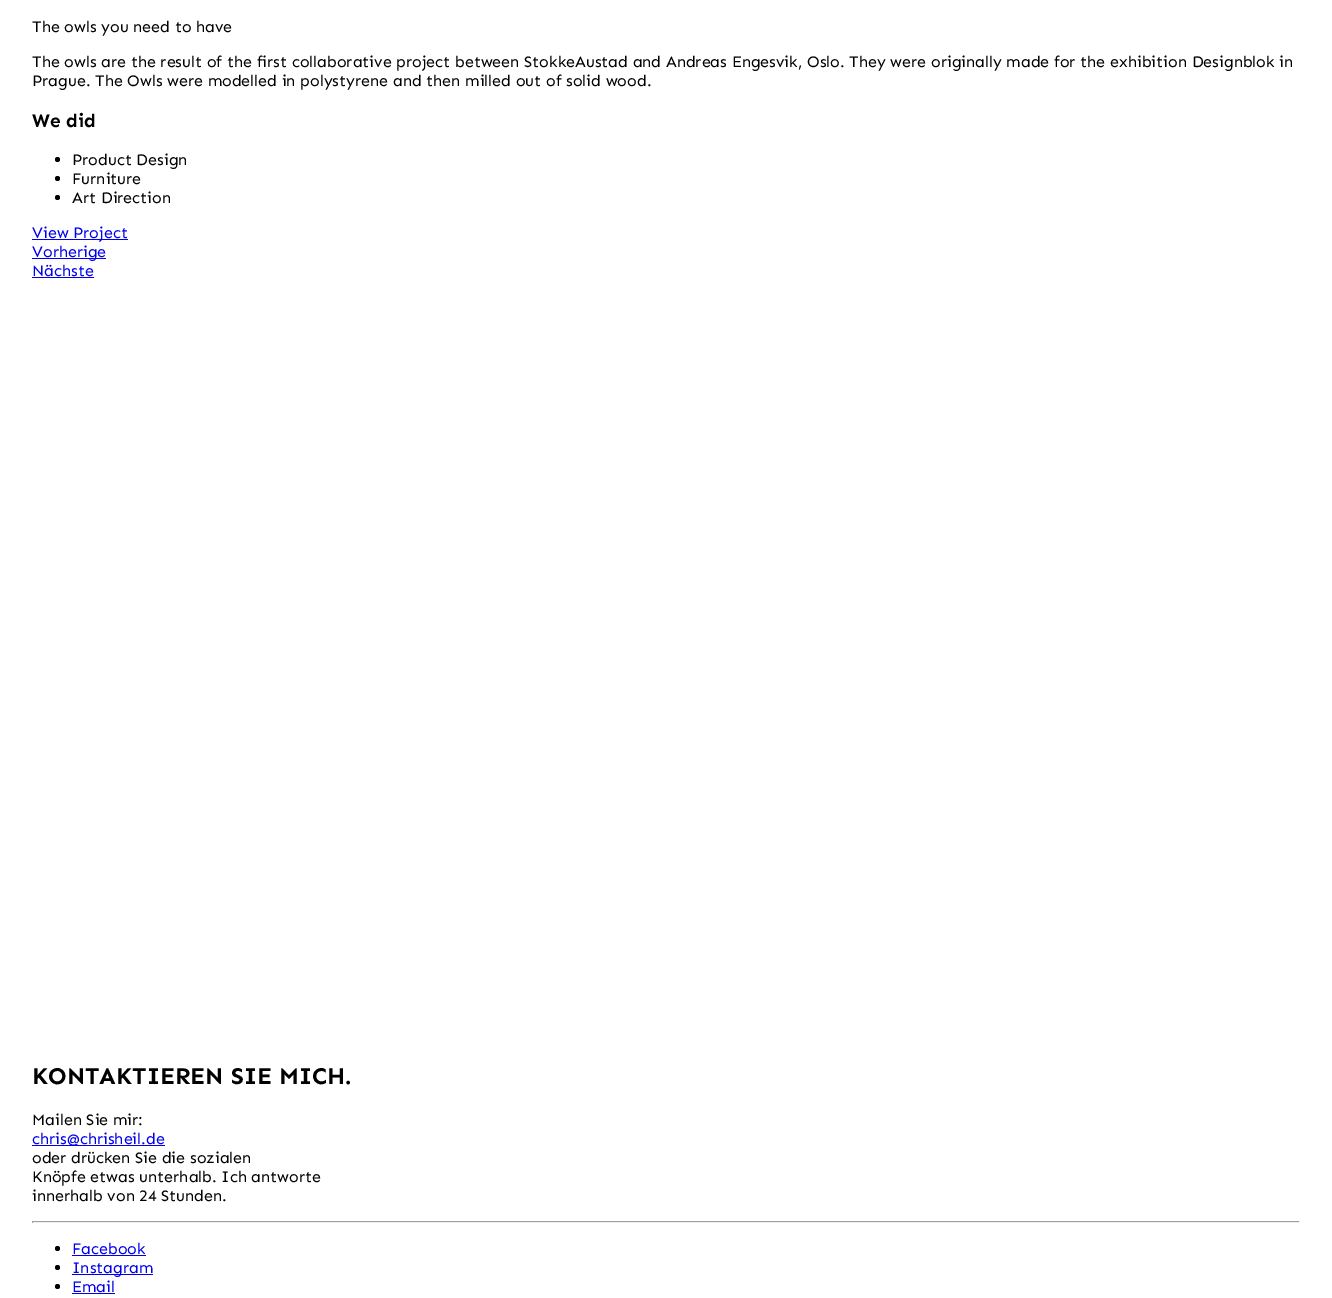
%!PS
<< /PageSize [1332 1298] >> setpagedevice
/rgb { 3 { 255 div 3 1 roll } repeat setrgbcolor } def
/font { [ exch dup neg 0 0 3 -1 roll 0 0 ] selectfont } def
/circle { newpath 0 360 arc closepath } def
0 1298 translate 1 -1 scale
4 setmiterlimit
255 255 255 rgb
0 0 1332 1298 rectfill
0 0 0 rgb
57.5 159.5 2.5 circle fill
57.5 178.5 2.5 circle fill
57.5 197.5 2.5 circle fill
[
  [32 239 96 1 0 0 238]
  [32 258 74 1 0 0 238]
  [32 277 62 1 0 0 238]
  [32 1145 133 1 0 0 238]
  [32 1221 1268 1 159 159 159]
  [1299 1221 1 2 238 238 238]
  [32 1222 1268 1 238 238 238]
  [32 1221 1 2 159 159 159]
] { aload pop rgb rectfill } forall
0 0 0 rgb
57.5 1248.5 2.5 circle fill
0 0 238 rgb
72 1255 74 1 rectfill
0 0 0 rgb
57.5 1267.5 2.5 circle fill
0 0 238 rgb
72 1274 81 1 rectfill
0 0 0 rgb
57.5 1286.5 2.5 circle fill
0 0 238 rgb
72 1293 43 1 rectfill
/Sen-Regular 16 font
0 0 0 rgb
[
  [(The owls you need to have) 32 32]
  [(The owls are the result of the first collaborative project between StokkeAustad and Andreas Engesvik, Oslo. They were originally made for the exhibition Designblok in) 32 67]
  [(Prague. The Owls were modelled in polystyrene and then milled out of solid wood.) 32 86]
] { aload pop moveto show } forall
/Sen-Bold 19 font
32 127 moveto (We did) show
/Sen-Regular 16 font
[
  [(Product Design) 72 165]
  [(Furniture) 72 184]
  [(Art Direction) 72 203]
] { aload pop moveto show } forall
0 0 238 rgb
[
  [(View Project) 32 238]
  [(Vorherige) 32 257]
  [(Nächste) 32 276]
] { aload pop moveto show } forall
/Sen-Bold 24 font
0 0 0 rgb
32 1084 moveto (KONTAKTIEREN SIE MICH.) show
/Sen-Regular 16 font
32 1125 moveto (Mailen Sie mir:) show
0 0 238 rgb
32 1144 moveto (chris@chrisheil.de) show
0 0 0 rgb
[
  [(oder drücken Sie die sozialen) 32 1163]
  [(Knöpfe etwas unterhalb. Ich antworte) 32 1182]
  [(innerhalb von 24 Stunden.) 32 1201]
] { aload pop moveto show } forall
0 0 238 rgb
[
  [(Facebook) 72 1254]
  [(Instagram) 72 1273]
  [(Email) 72 1292]
] { aload pop moveto show } forall
showpage
